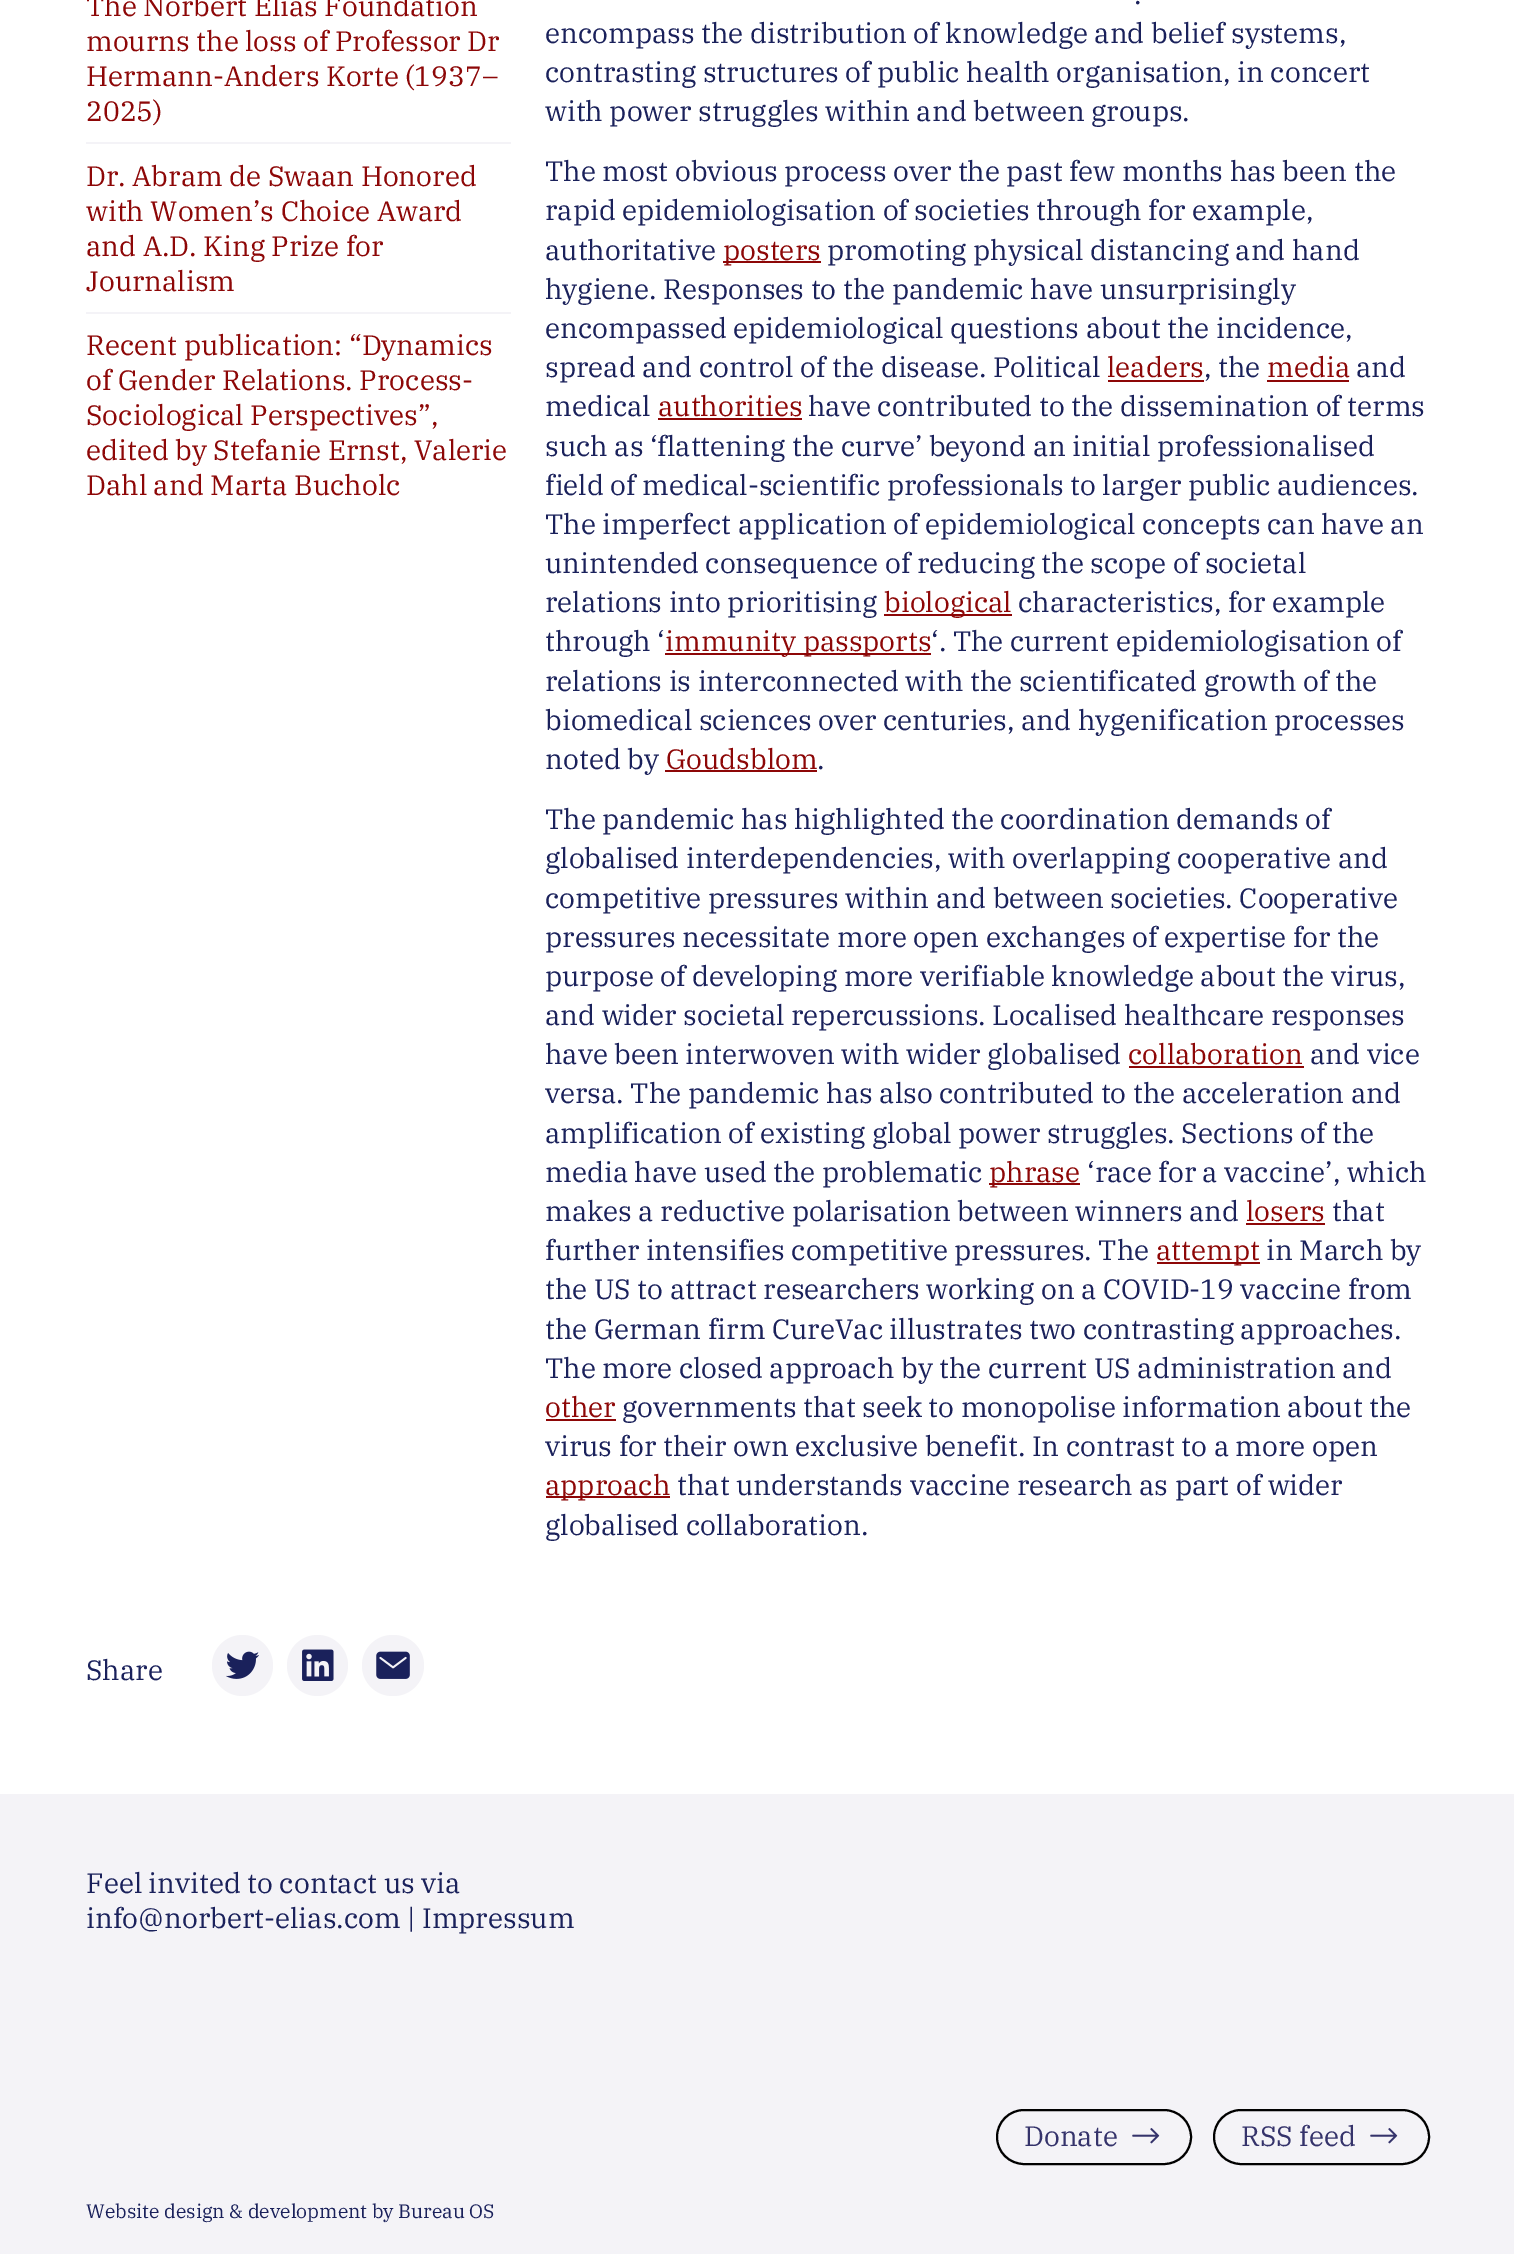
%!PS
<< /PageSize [1514 2254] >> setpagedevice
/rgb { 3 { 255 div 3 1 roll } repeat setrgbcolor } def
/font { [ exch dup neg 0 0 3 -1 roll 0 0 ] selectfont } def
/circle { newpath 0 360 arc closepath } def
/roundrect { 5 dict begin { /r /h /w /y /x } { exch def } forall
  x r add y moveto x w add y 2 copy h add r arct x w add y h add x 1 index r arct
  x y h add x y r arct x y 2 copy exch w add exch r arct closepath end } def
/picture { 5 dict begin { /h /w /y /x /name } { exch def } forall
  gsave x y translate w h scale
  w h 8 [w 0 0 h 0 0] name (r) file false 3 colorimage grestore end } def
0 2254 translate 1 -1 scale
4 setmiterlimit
255 255 255 rgb
0 0 1514 2254 rectfill
[
  [86 142 425 2 244 243 247]
  [86 312 425 2 244 243 247]
  [723 261 98 2 141 7 7]
  [1108 380 96 2 141 7 7]
  [1267 380 82 2 141 7 7]
  [658 418 144 2 141 7 7]
  [884 614 128 2 141 7 7]
  [665 653 266 2 141 7 7]
  [665 770 152 2 141 7 7]
  [1129 1066 175 2 141 7 7]
  [989 1183 91 2 141 7 7]
  [1246 1223 79 2 141 7 7]
  [1157 1262 103 2 141 7 7]
  [546 1419 70 2 141 7 7]
  [546 1496 124 2 141 7 7]
] { aload pop rgb rectfill } forall
244 243 247 rgb
242.5 1665.5 30.5 circle fill
(img/1.rgb) 226 1651 33 28 picture
317.5 1665.5 30.5 circle fill
(img/2.rgb) 302 1649 32 32 picture
362 1635 62 61 30.5 roundrect fill
(img/3.rgb) 376 1651 34 28 picture
0 1794 1514 460 rectfill
0 0 0 rgb
2 setlinewidth
997 2110 194 54 27 roundrect stroke
(img/4.rgb) 1132 2128 28 16 picture
1214 2110 215 54 27 roundrect stroke
(img/4.rgb) 1370 2128 28 16 picture
/IBMPlexSerif-Regular 28 font
141 7 7 rgb
[
  [(The Norbert Elias Foundation) 86 16]
  [(mourns the loss of Professor Dr) 86 51]
  [(Hermann-Anders Korte \(1937–) 86 86]
  [(2025\)) 86 121]
  [(Dr. Abram de Swaan Honored) 86 186]
  [(with Women’s Choice Award) 86 221]
  [(and A.D. King Prize for) 86 256]
  [(Journalism) 86 291]
  [(Recent publication: “Dynamics) 86 355]
  [(of Gender Relations. Process-) 86 390]
  [(Sociological Perspectives”,) 86 425]
  [(edited by Stefanie Ernst, Valerie) 86 460]
  [(Dahl and Marta Bucholc) 86 495]
] { aload pop moveto show } forall
26 33 91 rgb
[
  [(.) 1134 4]
  [(encompass the distribution of knowledge and belief systems,) 545 43]
  [(contrasting structures of public health organisation, in concert) 545 82]
  [(with power struggles within and between groups.) 545 121]
  [(The most obvious process over the past few months has been the) 545 181]
  [(rapid epidemiologisation of societies through for example,) 545 220]
  [(authoritative) 545 260]
] { aload pop moveto show } forall
141 7 7 rgb
723 260 moveto (posters) show
26 33 91 rgb
[
  [(promoting physical distancing and hand) 827 260]
  [(hygiene. Responses to the pandemic have unsurprisingly) 545 299]
  [(encompassed epidemiological questions about the incidence,) 545 338]
  [(spread and control of the disease. Political) 545 377]
] { aload pop moveto show } forall
141 7 7 rgb
1107 377 moveto (leaders) show
26 33 91 rgb
1204 377 moveto (, the) show
141 7 7 rgb
1267 377 moveto (media) show
26 33 91 rgb
1356 377 moveto (and) show
545 416 moveto (medical) show
141 7 7 rgb
658 416 moveto (authorities) show
26 33 91 rgb
[
  [(have contributed to the dissemination of terms) 808 416]
  [(such as ‘flattening the curve’ beyond an initial professionalised) 545 456]
  [(field of medical-scientific professionals to larger public audiences.) 545 495]
  [(The imperfect application of epidemiological concepts can have an) 545 534]
  [(unintended consequence of reducing the scope of societal) 545 573]
  [(relations into prioritising) 545 612]
] { aload pop moveto show } forall
141 7 7 rgb
884 612 moveto (biological) show
26 33 91 rgb
1018 612 moveto (characteristics, for example) show
545 651 moveto (through ‘) show
141 7 7 rgb
665 651 moveto (immunity passports) show
26 33 91 rgb
[
  [(‘. The current epidemiologisation of) 931 651]
  [(relations is interconnected with the scientificated growth of the) 545 691]
  [(biomedical sciences over centuries, and hygenification processes) 545 730]
  [(noted by) 545 769]
] { aload pop moveto show } forall
141 7 7 rgb
666 769 moveto (Goudsblom) show
26 33 91 rgb
[
  [(.) 817 769]
  [(The pandemic has highlighted the coordination demands of) 545 829]
  [(globalised interdependencies, with overlapping cooperative and) 545 868]
  [(competitive pressures within and between societies. Cooperative) 545 908]
  [(pressures necessitate more open exchanges of expertise for the) 545 947]
  [(purpose of developing more verifiable knowledge about the virus,) 545 986]
  [(and wider societal repercussions. Localised healthcare responses) 545 1025]
  [(have been interwoven with wider globalised) 545 1064]
] { aload pop moveto show } forall
141 7 7 rgb
1128 1064 moveto (collaboration) show
26 33 91 rgb
[
  [(and vice) 1310 1064]
  [(versa. The pandemic has also contributed to the acceleration and) 545 1103]
  [(amplification of existing global power struggles. Sections of the) 545 1143]
  [(media have used the problematic) 545 1182]
] { aload pop moveto show } forall
141 7 7 rgb
989 1182 moveto (phrase) show
26 33 91 rgb
1087 1182 moveto (‘race for a vaccine’, which) show
545 1221 moveto (makes a reductive polarisation between winners and) show
141 7 7 rgb
1246 1221 moveto (losers) show
26 33 91 rgb
1332 1221 moveto (that) show
545 1260 moveto (further intensifies competitive pressures. The) show
141 7 7 rgb
1156 1260 moveto (attempt) show
26 33 91 rgb
[
  [(in March by) 1266 1260]
  [(the US to attract researchers working on a COVID-19 vaccine from) 545 1299]
  [(the German firm CureVac illustrates two contrasting approaches.) 545 1339]
  [(The more closed approach by the current US administration and) 545 1378]
] { aload pop moveto show } forall
141 7 7 rgb
545 1417 moveto (other) show
26 33 91 rgb
622 1417 moveto (governments that seek to monopolise information about the) show
545 1456 moveto (virus for their own exclusive benefit. In contrast to a more open) show
141 7 7 rgb
545 1495 moveto (approach) show
26 33 91 rgb
[
  [(that understands vaccine research as part of wider) 677 1495]
  [(globalised collaboration.) 545 1535]
  [(Share) 86 1680]
  [(Feel invited to contact us via) 86 1893]
  [(info@norbert-elias.com | Impressum) 86 1928]
] { aload pop moveto show } forall
53 51 107 rgb
1024 2146 moveto (Donate) show
1241 2146 moveto (RSS feed) show
/IBMPlexSerif-Regular 19.4 font
26 33 91 rgb
86 2218 moveto (Website design & development by Bureau OS) show
showpage
